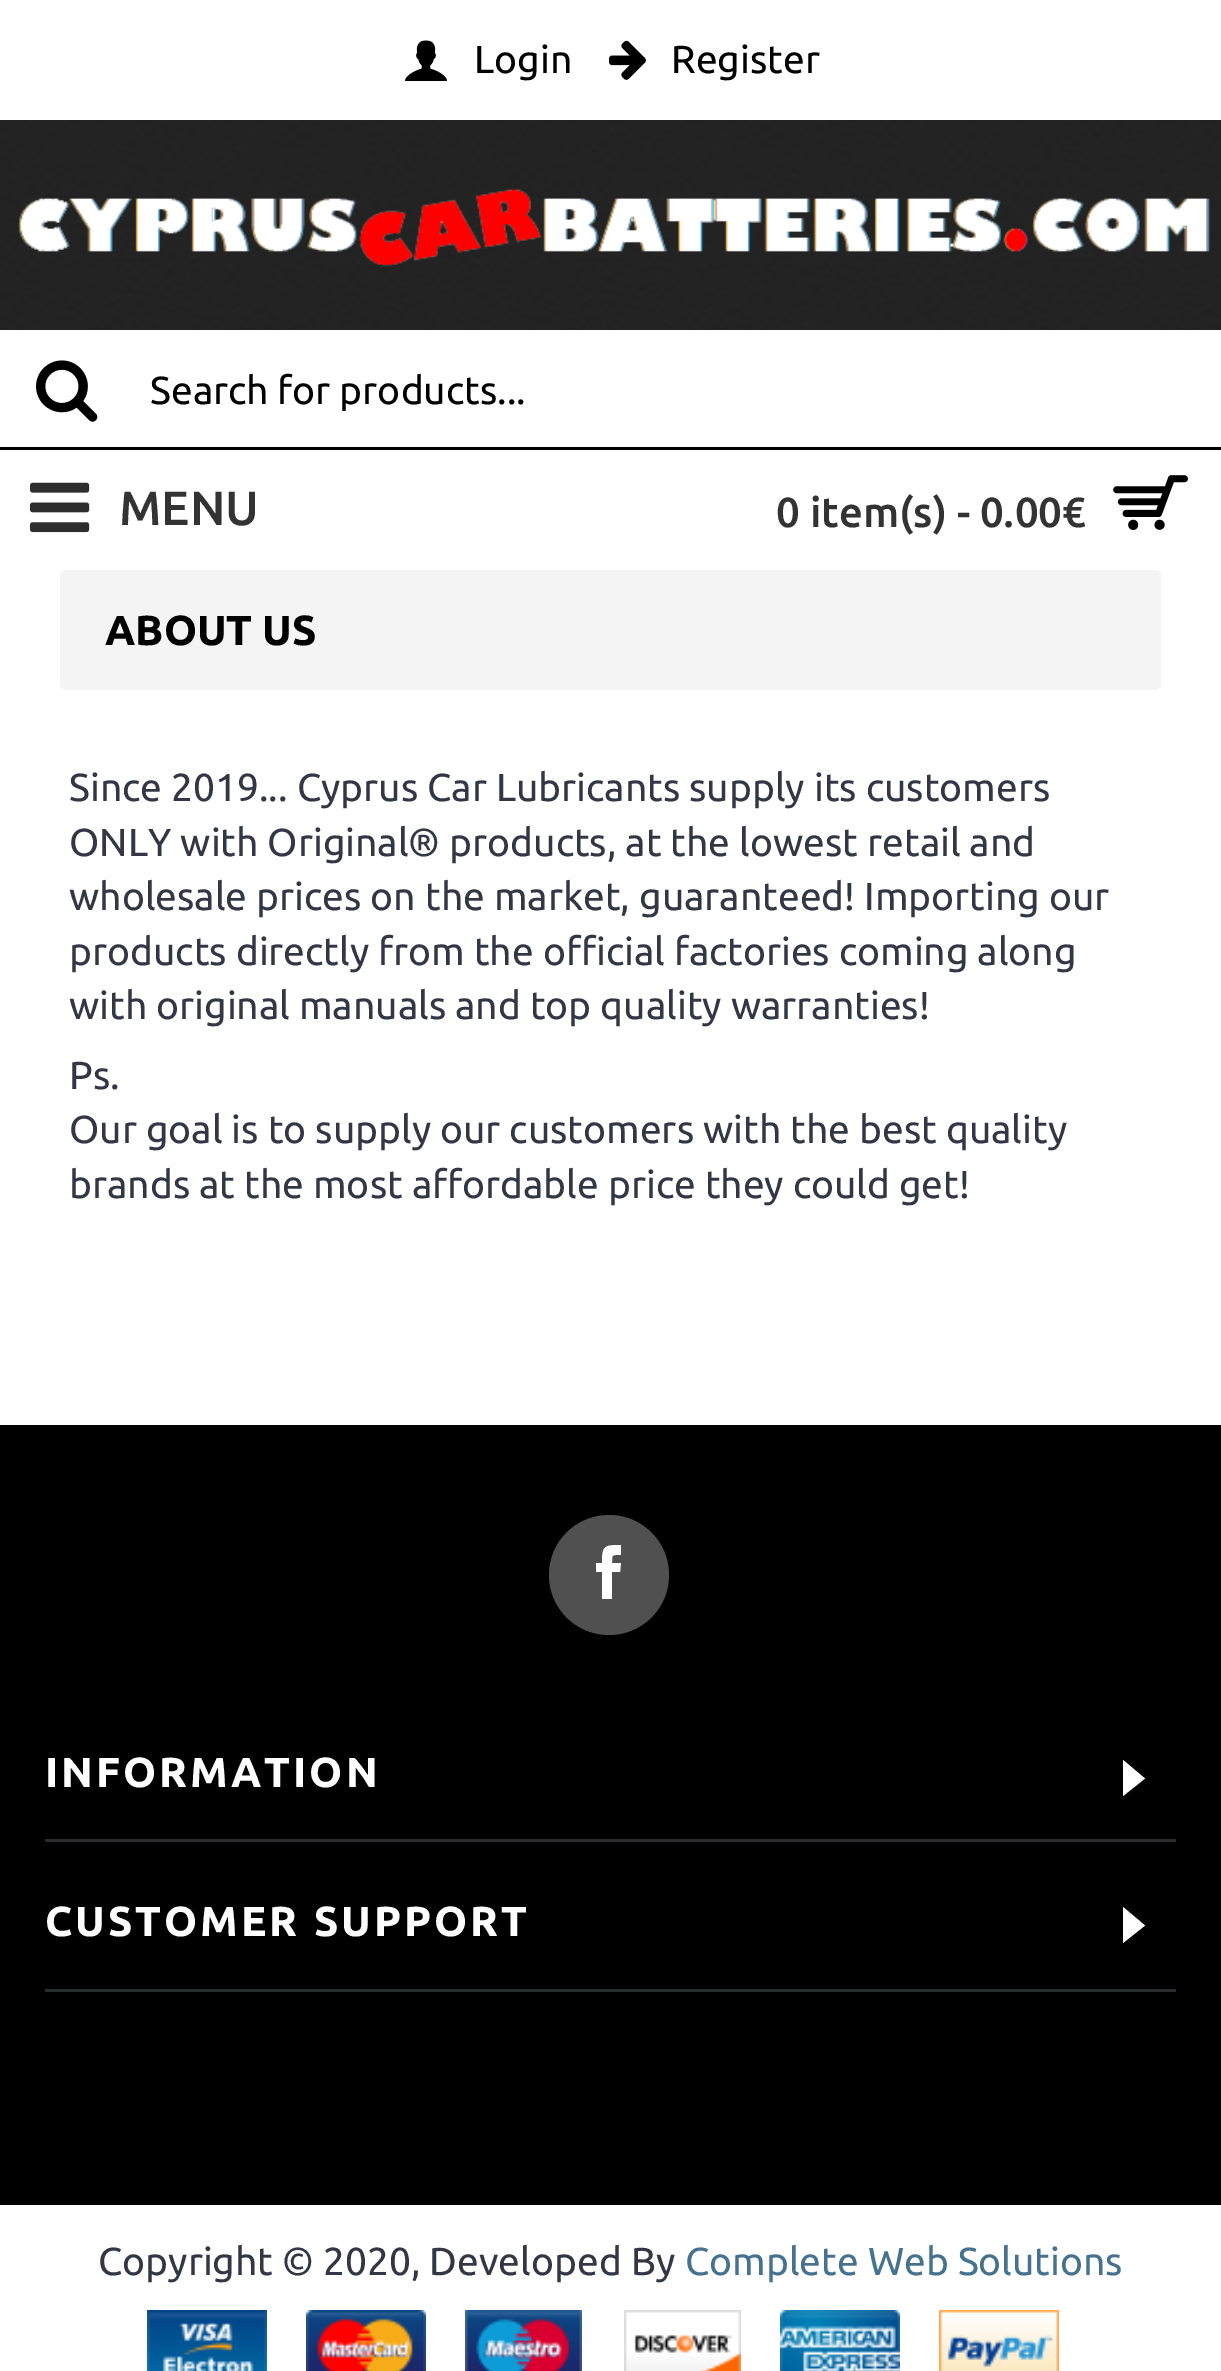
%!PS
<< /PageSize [1221 2371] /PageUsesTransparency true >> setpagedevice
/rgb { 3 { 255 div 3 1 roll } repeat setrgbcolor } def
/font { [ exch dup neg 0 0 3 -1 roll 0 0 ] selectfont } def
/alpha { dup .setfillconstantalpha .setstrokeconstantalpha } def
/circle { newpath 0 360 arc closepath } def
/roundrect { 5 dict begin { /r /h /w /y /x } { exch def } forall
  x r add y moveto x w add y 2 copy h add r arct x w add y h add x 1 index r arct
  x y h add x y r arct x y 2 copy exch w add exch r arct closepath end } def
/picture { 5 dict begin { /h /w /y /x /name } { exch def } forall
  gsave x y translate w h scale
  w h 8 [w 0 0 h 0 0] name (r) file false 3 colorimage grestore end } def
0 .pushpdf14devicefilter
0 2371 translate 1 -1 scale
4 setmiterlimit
255 255 255 rgb
0 0 1221 2371 rectfill
(img/1.rgb) 0 120 1221 210 picture
0.85 alpha
0 0 0 rgb
0 120 1221 210 rectfill
1 alpha
(img/2.rgb) 405 40 42 41 picture
(img/3.rgb) 609 40 37 40 picture
(img/4.rgb) 18 189 1192 78 picture
(img/5.rgb) 36 360 62 62 picture
0 447 1221 3 rectfill
(img/6.rgb) 1113 475 75 55 picture
(img/7.rgb) 30 482 60 51 picture
244 244 244 rgb
60 570 1101 120 6 roundrect fill
0 0 0 rgb
0 1425 1221 780 rectfill
80 80 80 rgb
609 1575 60 circle fill
255 255 255 rgb
612 1599 moveto 602 1599 lineto 602 1572 lineto 596 1572 lineto 596 1563 lineto 602 1563 lineto 602 1546 604 1545 621 1545 curveto 621 1555 lineto 612 1555 612 1554 612 1563 curveto 621 1563 lineto 620 1572 lineto 612 1572 lineto closepath fill
42 43 46 rgb
45 1839 1131 3 rectfill
255 255 255 rgb
1123 1760 moveto 1123 1796 lineto 1145 1778.5 lineto closepath fill
42 43 46 rgb
45 1989 1131 3 rectfill
255 255 255 rgb
1123 1907 moveto 1123 1943 lineto 1145 1925.5 lineto closepath fill
(img/8.rgb) 147 2310 120 61 picture
(img/9.rgb) 306 2310 120 61 picture
(img/10.rgb) 465 2310 117 61 picture
(img/11.rgb) 624 2310 117 61 picture
(img/12.rgb) 780 2310 120 61 picture
(img/13.rgb) 939 2310 120 61 picture
/Ubuntu-Regular 39 font
0 0 0 rgb
474 73 moveto (Login) show
671 73 moveto (Register) show
gsave
150 369 1071 42 rectclip
150 404 moveto (Search for products...) show
grestore
/Ubuntu-Medium 42 font
51 51 51 rgb
776 527 moveto (0 item\(s\) - 0.00€) show
/Ubuntu-Medium 48 font
119 525 moveto (MENU) show
/Ubuntu-Bold 42 font
0 0 0 rgb
105 645 moveto (ABOUT US) show
/Ubuntu-Regular 39 font
51 55 69 rgb
[
  [(Since 2019... Cyprus Car Lubricants supply its customers) 69 801]
  [(ONLY with Original® products, at the lowest retail and) 69 856]
  [(wholesale prices on the market, guaranteed! Importing our) 69 910]
  [(products directly from the official factories coming along) 69 965]
  [(with original manuals and top quality warranties!) 69 1019]
  [(Ps.) 69 1089]
  [(Our goal is to supply our customers with the best quality) 69 1143]
  [(brands at the most affordable price they could get!) 69 1198]
] { aload pop moveto show } forall
/Ubuntu-Bold 42 font
255 255 255 rgb
45 1787 moveto 3 0 (INFORMATION) ashow
45 1936 moveto 3 0 (CUSTOMER SUPPORT) ashow
/Ubuntu-Regular 39 font
51 55 69 rgb
98 2275 moveto (Copyright © 2020, Developed By) show
69 115 143 rgb
685 2275 moveto (Complete Web Solutions) show
.poppdf14devicefilter showpage
